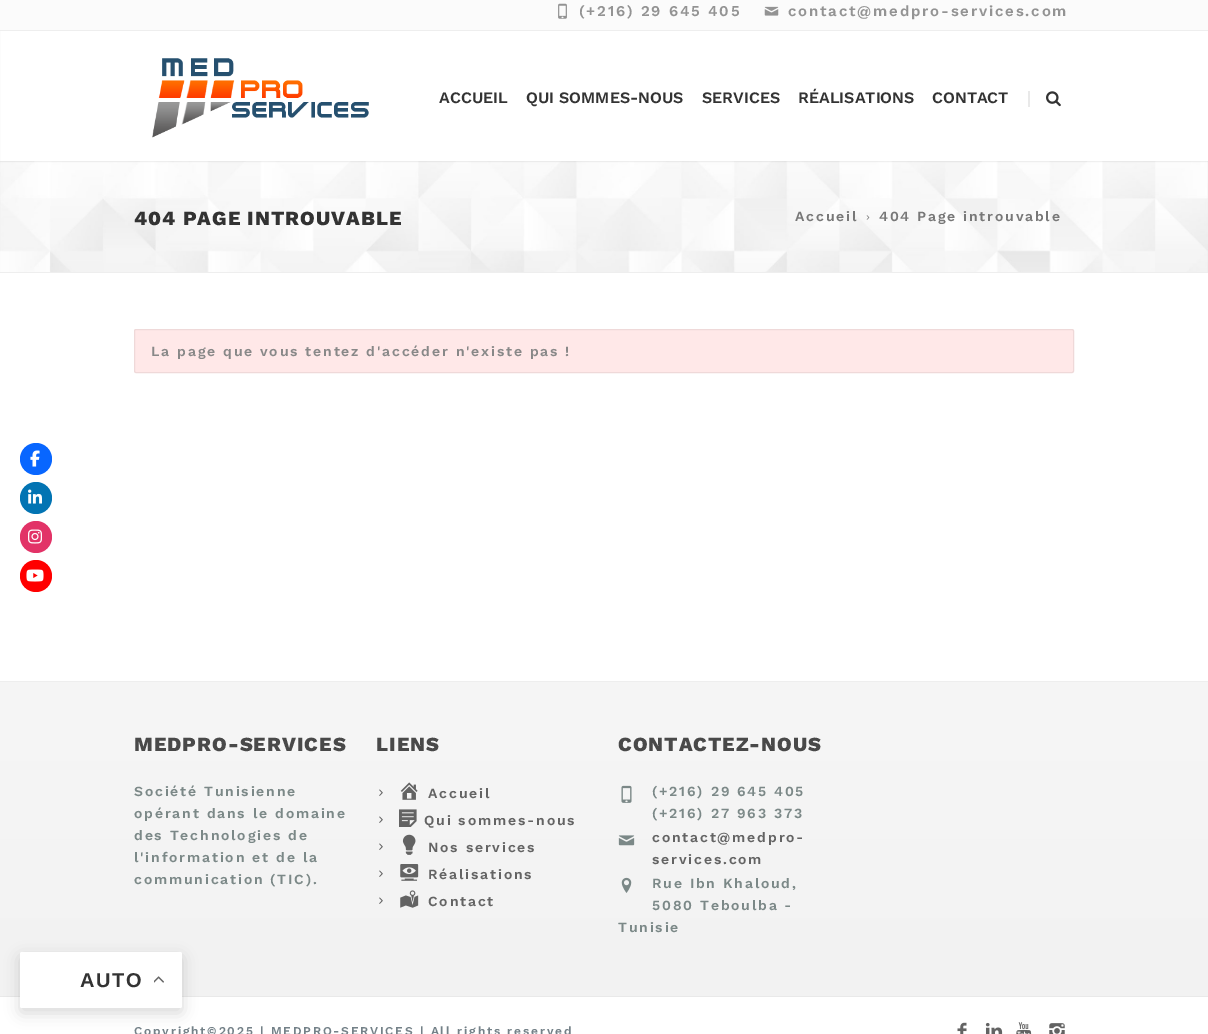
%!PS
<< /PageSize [1208 1034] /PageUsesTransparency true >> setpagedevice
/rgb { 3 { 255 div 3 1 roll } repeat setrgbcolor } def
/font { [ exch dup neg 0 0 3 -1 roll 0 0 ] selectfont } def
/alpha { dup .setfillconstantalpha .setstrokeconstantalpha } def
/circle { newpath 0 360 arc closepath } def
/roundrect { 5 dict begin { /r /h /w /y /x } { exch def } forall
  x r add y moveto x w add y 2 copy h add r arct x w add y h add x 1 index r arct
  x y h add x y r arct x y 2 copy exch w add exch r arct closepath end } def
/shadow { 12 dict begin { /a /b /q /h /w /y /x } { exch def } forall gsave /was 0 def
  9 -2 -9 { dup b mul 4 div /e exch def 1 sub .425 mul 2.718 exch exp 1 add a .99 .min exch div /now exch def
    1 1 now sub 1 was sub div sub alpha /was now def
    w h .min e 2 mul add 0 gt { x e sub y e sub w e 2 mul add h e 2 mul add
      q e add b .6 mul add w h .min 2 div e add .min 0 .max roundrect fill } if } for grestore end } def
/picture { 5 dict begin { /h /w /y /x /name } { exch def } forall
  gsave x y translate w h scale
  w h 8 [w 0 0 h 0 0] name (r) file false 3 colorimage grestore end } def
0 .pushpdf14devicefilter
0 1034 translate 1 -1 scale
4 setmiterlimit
255 255 255 rgb
0 0 1208 1034 rectfill
8 102 255 rgb
36 459 16 circle fill
(img/1.rgb) 30 450 10 17 picture
2 116 179 rgb
36 498 16 circle fill
(img/2.rgb) 28 489 14 15 picture
226 51 103 rgb
36 537 16 circle fill
(img/3.rgb) 28 529 14 15 picture
255 0 0 rgb
36 576 16 circle fill
(img/4.rgb) 26 569 18 13 picture
(img/9.rgb) 0 161 1208 111 picture
0.05 alpha
0 0 0 rgb
-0.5 -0.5 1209 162 rectstroke
1 alpha
251 251 251 rgb
0 0 1208 30 rectfill
238 238 238 rgb
0 30 1208 1 rectfill
(img/5.rgb) 558 3 9 16 picture
(img/6.rgb) 764 6 15 10 picture
(img/7.rgb) 152 58 217 80 picture
(img/8.rgb) 1046 91 15 16 picture
0 272 1208 1 rectfill
(img/10.rgb) 866 215 4 5 picture
255 232 232 rgb
134.5 329.5 939 43 1.5 roundrect gsave fill grestore
239 217 217 rgb
stroke
gsave 0 682 moveto 1208 682 lineto 1208 996 lineto 0 996 lineto closepath clip newpath
<< /ShadingType 2 /ColorSpace /DeviceRGB /Coords [604 682 604 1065] /Extend [true true] /Function << /FunctionType 2 /Domain [0 1] /C0 [0.965 0.965 0.965] /C1 [0.945 0.945 0.945] /N 1 >> >> shfill grestore
238 238 238 rgb
0 681 1208 1 rectfill
(img/11.rgb) 379 789 4 7 picture
(img/12.rgb) 400 782 18 18 picture
(img/13.rgb) 379 816 4 7 picture
(img/14.rgb) 399 809 18 18 picture
(img/13.rgb) 379 843 4 7 picture
(img/15.rgb) 402 834 14 21 picture
(img/16.rgb) 379 870 4 7 picture
(img/17.rgb) 400 864 19 17 picture
(img/18.rgb) 379 897 4 7 picture
(img/19.rgb) 400 890 19 18 picture
(img/20.rgb) 621 785 11 18 picture
(img/21.rgb) 618 835 17 11 picture
(img/22.rgb) 621 877 11 16 picture
233 233 233 rgb
0 996 1208 1 rectfill
(img/23.rgb) 957 1022 10 12 picture
(img/24.rgb) 985 1022 18 12 picture
(img/25.rgb) 1016 1022 16 12 picture
(img/26.rgb) 1049 1023 16 11 picture
0 0 0 rgb
20 957 162 56 2 7.5 0.15 shadow
255 255 255 rgb
20 952 162 56 2 roundrect fill
(img/27.rgb) 154 976 10 7 picture
/WorkSans-SemiBold 15 font
147 147 147 rgb
579 16 moveto 1.8 0 (\(+216\) 29 645 405) ashow
788 16 moveto 1.8 0 (contact@medpro-services.com) ashow
/WorkSans-SemiBold 16 font
51 51 51 rgb
[
  [(ACCUEIL) 439 103]
  [(QUI SOMMES-NOUS) 526 103]
  [(SERVICES) 702 103]
  [(RÉALISATIONS) 798 103]
  [(CONTACT) 932 103]
] { aload pop moveto show } forall
/Lato-Light 17 font
173 173 173 rgb
1027 104 moveto (|) show
/WorkSans-ExtraBold 20 font
51 51 51 rgb
134 225 moveto 1 0 (404 PAGE INTROUVABLE) ashow
/WorkSans-SemiBold 14 font
119 119 119 rgb
795 221 moveto 1.8 0 (Accueil) ashow
879 221 moveto 1.8 0 (404 Page introuvable) ashow
136 136 136 rgb
151 356 moveto 1.8 0 (La page que vous tentez d'accéder n'existe pas !) ashow
/WorkSans-ExtraBold 20 font
73 73 73 rgb
134 751 moveto 1 0 (MEDPRO-SERVICES) ashow
/WorkSans-SemiBold 14 font
123 136 135 rgb
134 796 moveto 1.8 0 (Société Tunisienne) ashow
134 818 moveto 1.8 0 (opérant dans le domaine) ashow
134 840 moveto 1.8 0 (des Technologies de) ashow
134 862 moveto 1.8 0 (l'information et de la) ashow
134 884 moveto 1.8 0 (communication \(TIC\).) ashow
/WorkSans-ExtraBold 20 font
73 73 73 rgb
376 751 moveto 1 0 (LIENS) ashow
/WorkSans-SemiBold 14 font
99 99 99 rgb
428 798 moveto 1.8 0 (Accueil) ashow
424 825 moveto 1.8 0 (Qui sommes-nous) ashow
428 852 moveto 1.8 0 (Nos services) ashow
428 879 moveto 1.8 0 (Réalisations) ashow
428 906 moveto 1.8 0 (Contact) ashow
/WorkSans-ExtraBold 20 font
73 73 73 rgb
618 751 moveto 1 0 (CONTACTEZ-NOUS) ashow
/WorkSans-SemiBold 14 font
123 136 135 rgb
652 796 moveto 1.8 0 (\(+216\) 29 645 405) ashow
652 818 moveto 1.8 0 (\(+216\) 27 963 373) ashow
99 99 99 rgb
652 842 moveto 1.8 0 (contact@medpro-) ashow
652 864 moveto 1.8 0 (services.com) ashow
123 136 135 rgb
652 888 moveto 1.8 0 (Rue Ibn Khaloud,) ashow
652 910 moveto 1.8 0 (5080 Teboulba -) ashow
618 932 moveto 1.8 0 (Tunisie) ashow
/WorkSans-SemiBold 12 font
116 129 136 rgb
134 1035 moveto 1.8 0 (Copyright©2025 | MEDPRO-SERVICES | All rights reserved) ashow
/LiberationSans-Bold 20 font
51 51 51 rgb
80 987 moveto 1.8 0 (AUTO) ashow
.poppdf14devicefilter showpage
